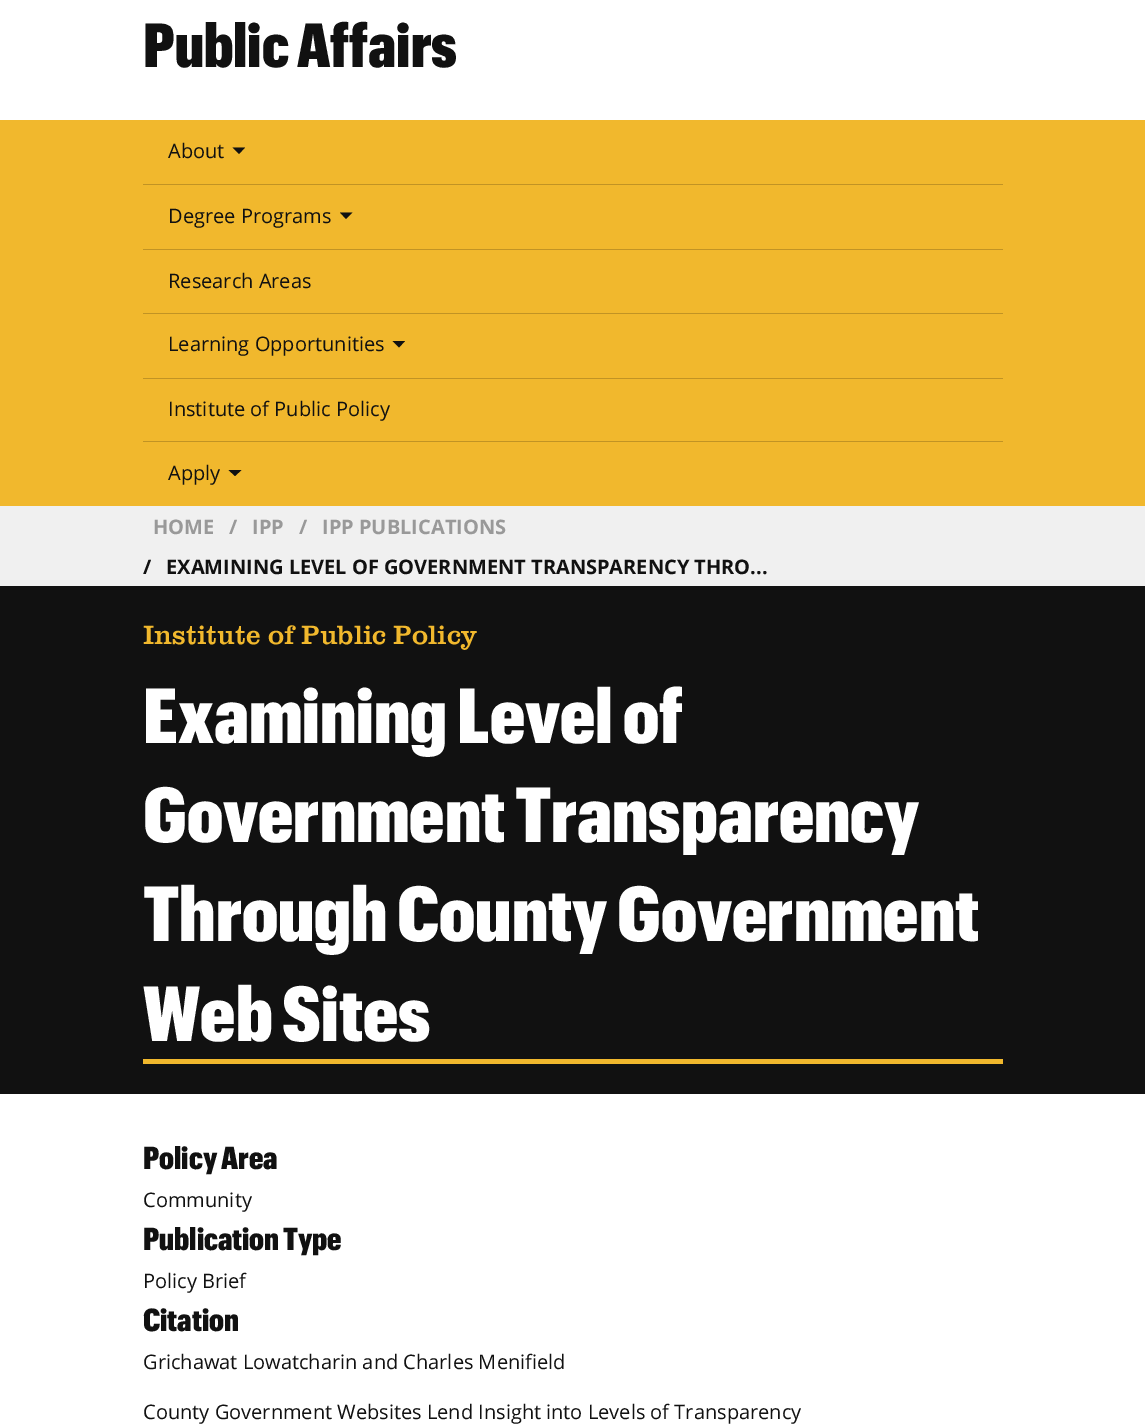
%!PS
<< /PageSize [1145 1427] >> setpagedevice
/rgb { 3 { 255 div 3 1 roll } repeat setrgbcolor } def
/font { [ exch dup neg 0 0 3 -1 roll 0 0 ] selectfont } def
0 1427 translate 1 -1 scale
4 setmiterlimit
255 255 255 rgb
0 0 1145 1427 rectfill
241 184 45 rgb
0 120 1145 386 rectfill
17 17 17 rgb
232.5 147.5 moveto 245 147.5 lineto 239 154 lineto closepath fill
193 147 36 rgb
143 184 860 1 rectfill
17 17 17 rgb
340 212.5 moveto 352.5 212.5 lineto 346 219 lineto closepath fill
193 147 36 rgb
143 249 860 1 rectfill
143 313 860 1 rectfill
17 17 17 rgb
392.5 341 moveto 405 341 lineto 399 347.5 lineto closepath fill
193 147 36 rgb
143 378 860 1 rectfill
143 441 860 1 rectfill
17 17 17 rgb
228.5 470 moveto 241.5 470 lineto 235 476 lineto closepath fill
[
  [0 506 1145 80 240 240 240]
  [0 586 1145 508 17 17 17]
  [143 1059 860 5 241 184 45]
] { aload pop rgb rectfill } forall
/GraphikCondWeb-ExtraBold 61 font
17 17 17 rgb
143 67 moveto (Public Affairs) show
/OpenSans-Regular 20 font
[
  [(About) 168 158]
  [(Degree Programs) 168 223]
  [(Research Areas) 168 288]
  [(Learning Opportunities) 168 351]
  [(Institute of Public Policy) 168 416]
  [(Apply) 168 480]
] { aload pop moveto show } forall
/OpenSans-Bold 20 font
153 153 153 rgb
[
  [(HOME) 153 534]
  [(/) 229 534]
  [(IPP) 252 534]
  [(/) 299 534]
  [(IPP PUBLICATIONS) 322 534]
] { aload pop moveto show } forall
17 17 17 rgb
143 574 moveto (/) show
166 574 moveto (EXAMINING LEVEL OF GOVERNMENT TRANSPARENCY THRO...) show
/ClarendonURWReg-Regular 27.5 font
241 184 45 rgb
143 644 moveto (Institute of Public Policy) show
/GraphikCondWeb-ExtraBold 76.25 font
255 255 255 rgb
[
  [(Examining Level of) 143 743]
  [(Government Transparency) 143 842]
  [(Through County Government) 143 941]
  [(Web Sites) 143 1041]
] { aload pop moveto show } forall
/GraphikCondWeb-ExtraBold 31.25 font
17 17 17 rgb
143 1169 moveto (Policy Area) show
/OpenSans-Regular 20 font
143 1207 moveto (Community) show
/GraphikCondWeb-ExtraBold 31.25 font
143 1250 moveto (Publication Type) show
/OpenSans-Regular 20 font
143 1288 moveto (Policy Brief) show
/GraphikCondWeb-ExtraBold 31.25 font
143 1331 moveto (Citation) show
/OpenSans-Regular 20 font
143 1369 moveto (Grichawat Lowatcharin and Charles Menifield) show
143 1419 moveto (County Government Websites Lend Insight into Levels of Transparency) show
showpage
